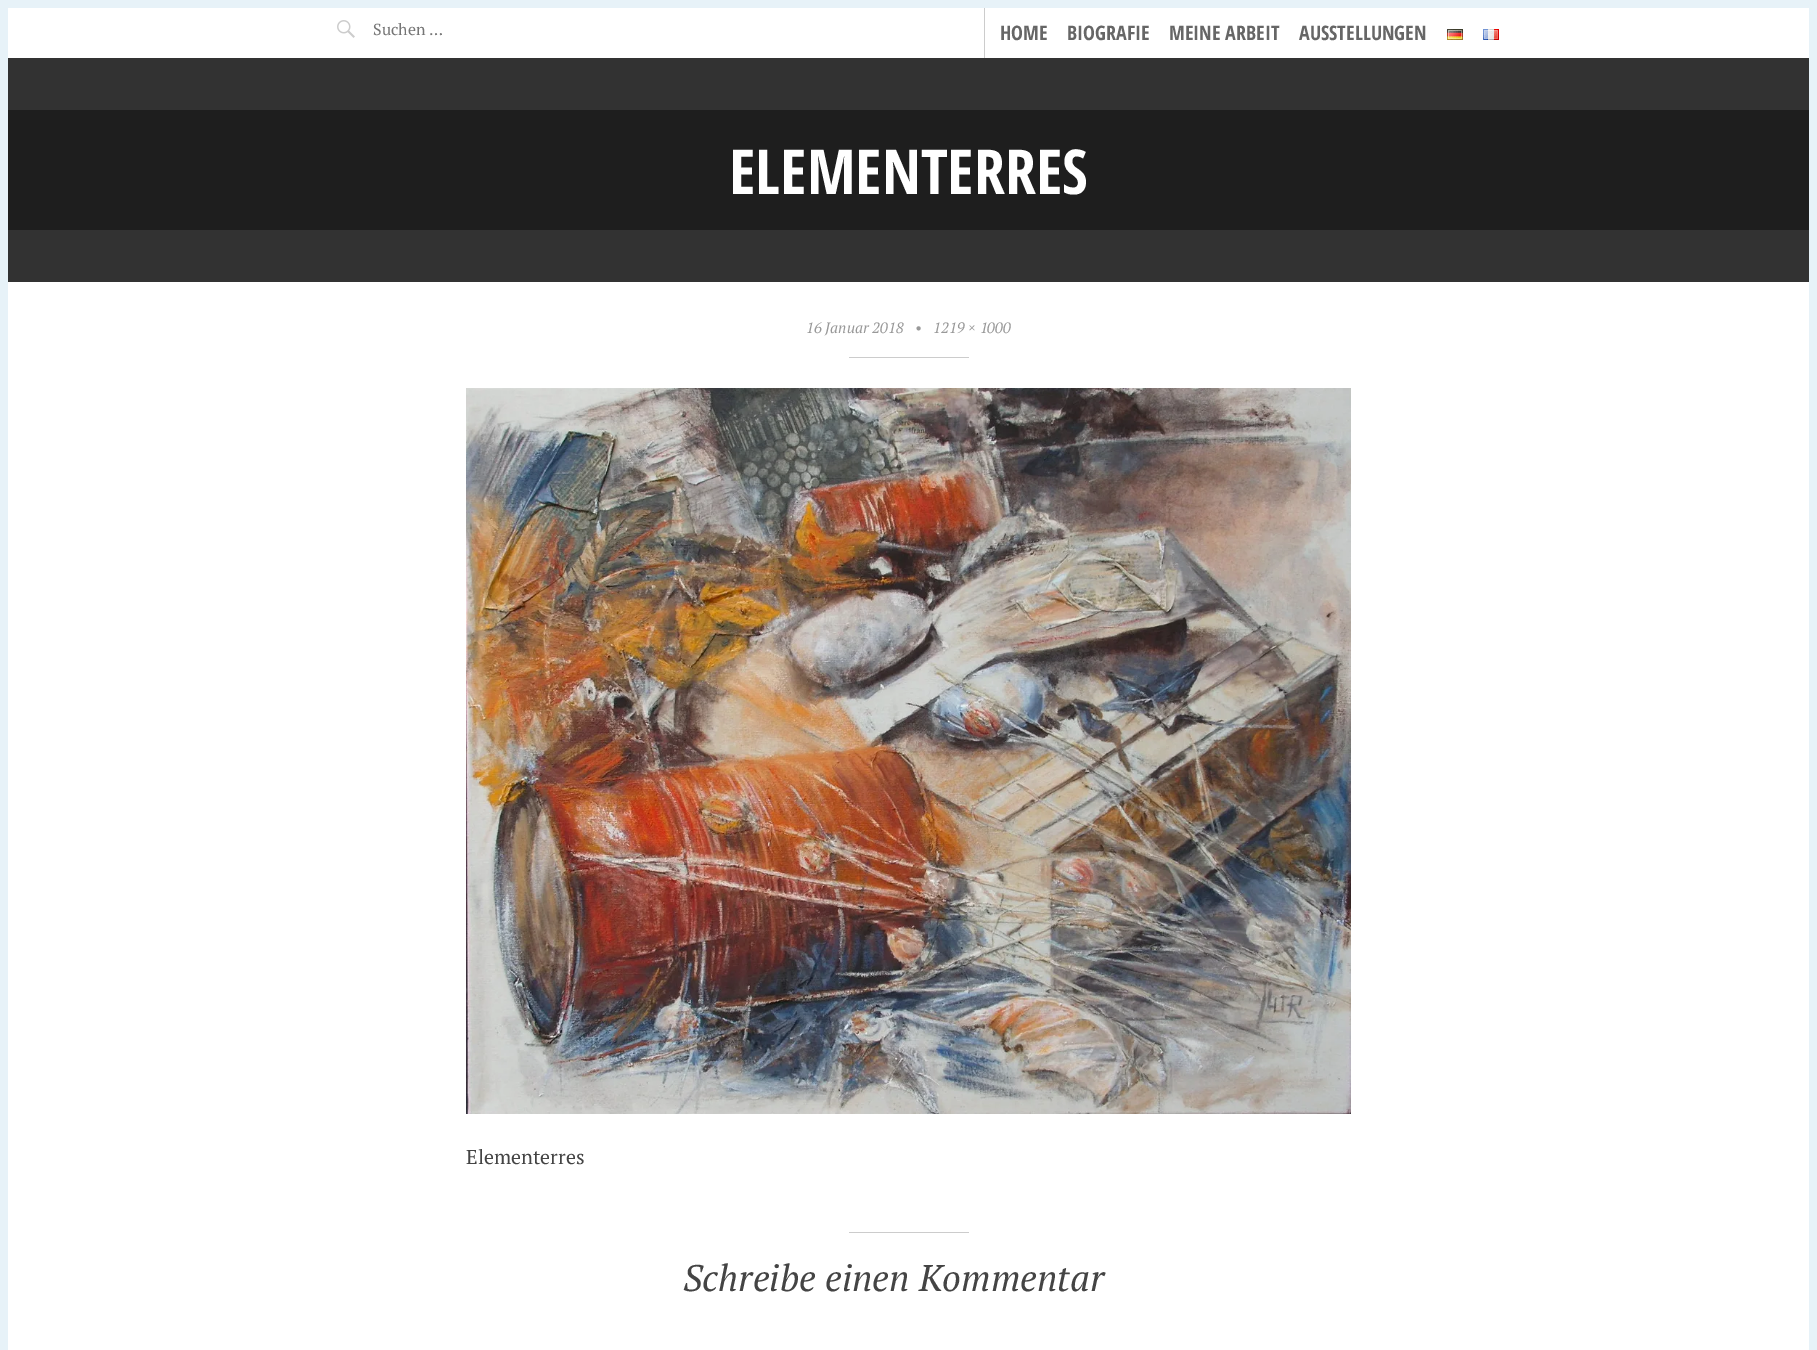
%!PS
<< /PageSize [1817 1350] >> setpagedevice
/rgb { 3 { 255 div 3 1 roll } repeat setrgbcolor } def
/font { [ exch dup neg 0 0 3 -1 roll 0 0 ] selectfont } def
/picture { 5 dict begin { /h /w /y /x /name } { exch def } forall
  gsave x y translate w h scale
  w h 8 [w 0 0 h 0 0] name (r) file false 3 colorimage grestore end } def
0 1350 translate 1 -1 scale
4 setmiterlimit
231 242 248 rgb
0 0 1817 1350 rectfill
255 255 255 rgb
8 8 1801 1342 rectfill
(img/1.rgb) 337 20 18 18 picture
204 204 204 rgb
984 8 1 50 rectfill
(img/2.rgb) 1447 29 16 11 picture
(img/3.rgb) 1483 29 16 11 picture
[
  [8 110 1801 120 30 30 30]
  [8 58 1801 52 50 50 50]
  [8 230 1801 52 50 50 50]
  [849 357 120 1 204 204 204]
] { aload pop rgb rectfill } forall
(img/4.rgb) 466 388 885 726 picture
849 1232 120 1 rectfill
/PTSerif-Regular 16 font
117 117 117 rgb
373 35 moveto (Suchen …) show
/OpenSansCondensed-Bold 20 font
102 102 102 rgb
[
  [(HOME) 1000 40]
  [(BIOGRAFIE) 1067 40]
  [(MEINE ARBEIT) 1169 40]
  [(AUSSTELLUNGEN) 1299 40]
] { aload pop moveto show } forall
/OpenSansCondensed-Bold 62 font
255 255 255 rgb
729 194 moveto (ELEMENTERRES) show
/PTSerif-Italic 15 font
153 153 153 rgb
[
  [(16 Januar 2018) 806 333]
  [(•) 915 333]
  [(1219 × 1000) 933 333]
] { aload pop moveto show } forall
/PTSerif-Regular 20 font
68 68 68 rgb
466 1164 moveto (Elementerres) show
/PTSerif-Italic 37 font
683 1291 moveto (Schreibe einen Kommentar) show
showpage
